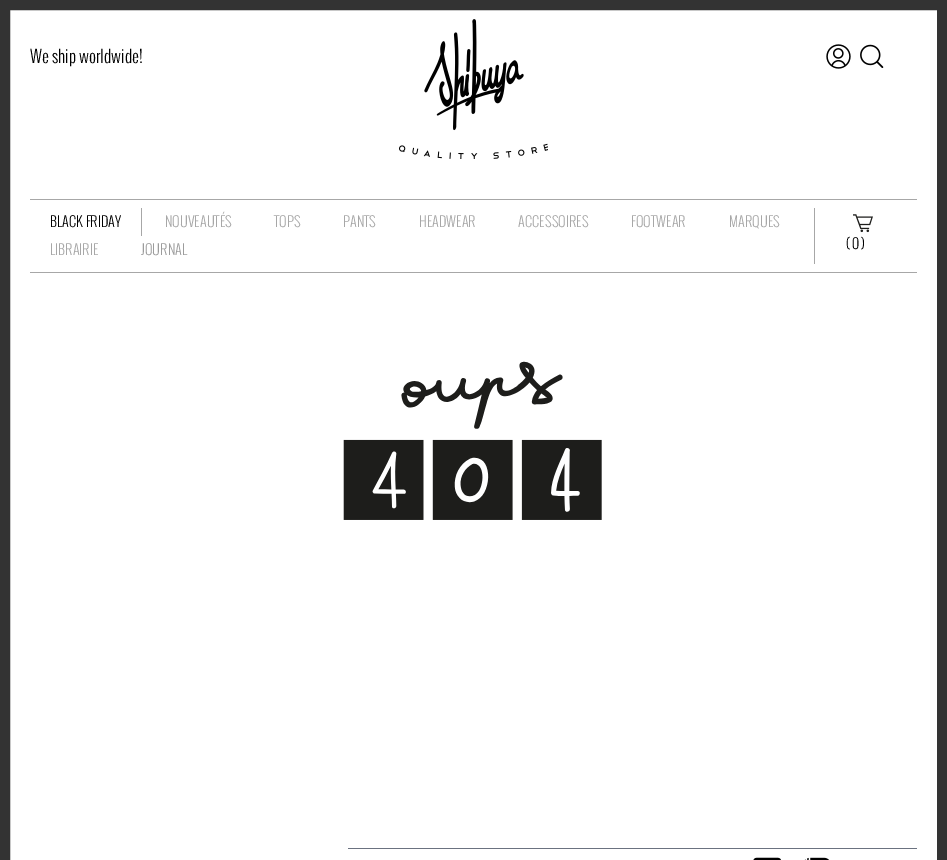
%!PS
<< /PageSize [947 860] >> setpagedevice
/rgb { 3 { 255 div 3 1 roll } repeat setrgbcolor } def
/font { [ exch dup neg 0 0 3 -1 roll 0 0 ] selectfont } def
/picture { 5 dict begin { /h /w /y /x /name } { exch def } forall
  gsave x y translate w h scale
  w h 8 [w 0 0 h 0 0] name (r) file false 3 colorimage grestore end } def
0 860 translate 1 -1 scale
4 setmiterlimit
255 255 255 rgb
0 0 947 860 rectfill
51 51 51 rgb
10 setlinewidth
5 5 937 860 rectstroke
(img/1.rgb) 399 19 149 140 picture
(img/2.rgb) 826 44 25 25 picture
(img/3.rgb) 860 44 24 24 picture
[
  [30 199 887 1 167 167 167]
  [30 272 887 1 167 167 167]
  [141 208 1 28 167 167 167]
  [814 208 1 56 167 167 167]
] { aload pop rgb rectfill } forall
(img/4.rgb) 853 214 20 19 picture
(img/5.rgb) 343 361 259 159 picture
107 114 128 rgb
348 848 569 1 rectfill
(img/6.rgb) 753 857 28 3 picture
(img/7.rgb) 804 857 26 3 picture
/Oswald-Light 17 font
0 0 0 rgb
30 63 moveto (We ship worldwide!) show
/Oswald-Light 14 font
50 227 moveto (BLACK FRIDAY) show
167 167 167 rgb
[
  [(NOUVEAUTÉS) 165 227]
  [(TOPS) 274 227]
  [(PANTS) 343 227]
  [(HEADWEAR) 419 227]
  [(ACCESSOIRES) 518 227]
  [(FOOTWEAR) 631 227]
  [(MARQUES) 729 227]
  [(LIBRAIRIE) 50 255]
] { aload pop moveto show } forall
156 156 156 rgb
141 255 moveto (JOURNAL) show
0 0 0 rgb
846 249 moveto (\( 0 \)) show
showpage
